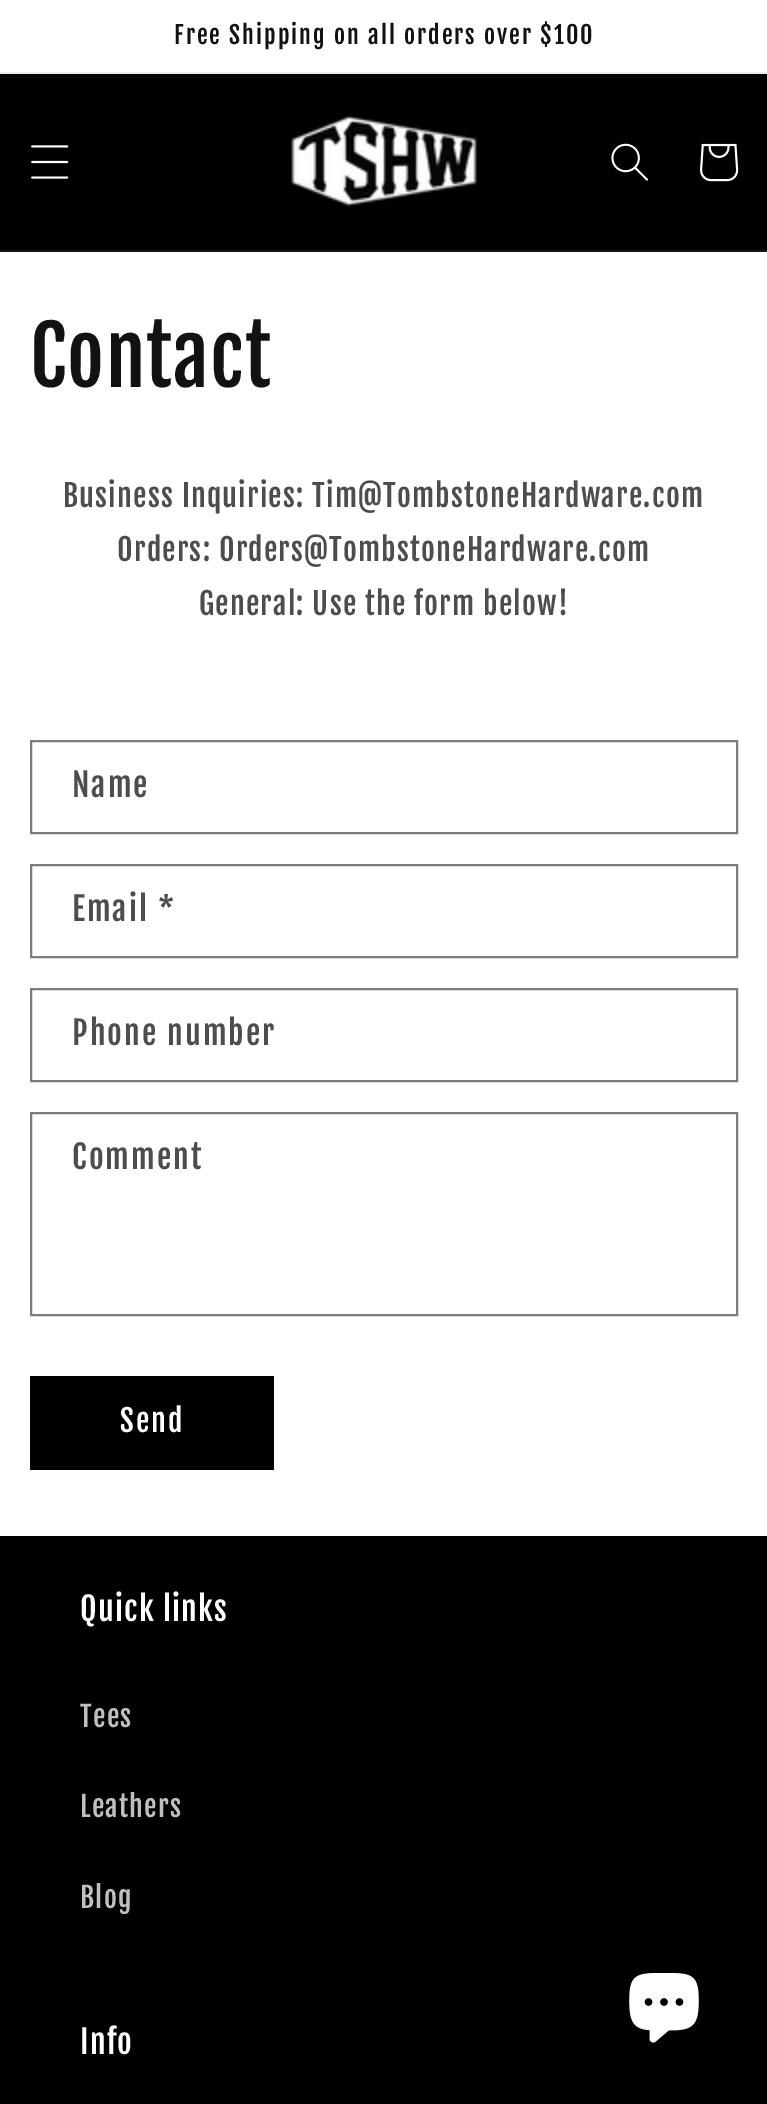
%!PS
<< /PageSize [767 2104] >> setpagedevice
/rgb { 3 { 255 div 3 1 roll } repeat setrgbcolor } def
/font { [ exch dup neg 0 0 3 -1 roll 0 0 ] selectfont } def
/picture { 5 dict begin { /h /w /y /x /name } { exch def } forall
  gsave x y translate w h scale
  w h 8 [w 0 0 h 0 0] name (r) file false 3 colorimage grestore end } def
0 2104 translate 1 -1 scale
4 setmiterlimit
255 255 255 rgb
0 0 767 2104 rectfill
[
  [0 72 767 2 236 236 236]
  [0 74 767 176 0 0 0]
  [0 250 767 2 20 20 20]
] { aload pop rgb rectfill } forall
(img/1.rgb) 31 145 38 34 picture
(img/2.rgb) 291 115 186 92 picture
(img/3.rgb) 611 143 37 38 picture
(img/4.rgb) 700 143 39 39 picture
125 125 125 rgb
2 setlinewidth
31 741 706 92 rectstroke
31 865 706 92 rectstroke
31 989 706 92 rectstroke
31 1113 706 202 rectstroke
0 0 0 rgb
30 1376 244 94 rectfill
0 1536 767 568 rectfill
(img/5.rgb) 629 1973 70 70 picture
/FjallaOne-Regular 24 font
18 18 18 rgb
174 44 moveto 2 0 (Free Shipping on all orders over $100) ashow
/FjallaOne-Regular 80 font
30 387 moveto 1.2 0 (Contact) ashow
/FjallaOne-Regular 30 font
77 77 77 rgb
63 507 moveto 1.2 0 (Business Inquiries: Tim@TombstoneHardware.com) ashow
117 561 moveto 1.2 0 (Orders: Orders@TombstoneHardware.com) ashow
199 615 moveto 1.2 0 (General: Use the form below!) ashow
/FjallaOne-Regular 32 font
72 797 moveto 2 0 (Name) ashow
72 921 moveto 2 0 (Email *) ashow
72 1045 moveto 2 0 (Phone number) ashow
72 1169 moveto 2 0 (Comment) ashow
/FjallaOne-Regular 30 font
255 255 255 rgb
120 1432 moveto 2 0 (Send) ashow
/FjallaOne-Regular 32 font
80 1621 moveto 1.2 0 (Quick links) ashow
/FjallaOne-Regular 28 font
191 191 191 rgb
80 1727 moveto 1.2 0 (Tees) ashow
80 1817 moveto 1.2 0 (Leathers) ashow
80 1908 moveto 1.2 0 (Blog) ashow
/FjallaOne-Regular 32 font
255 255 255 rgb
80 2054 moveto 1.2 0 (Info) ashow
showpage
